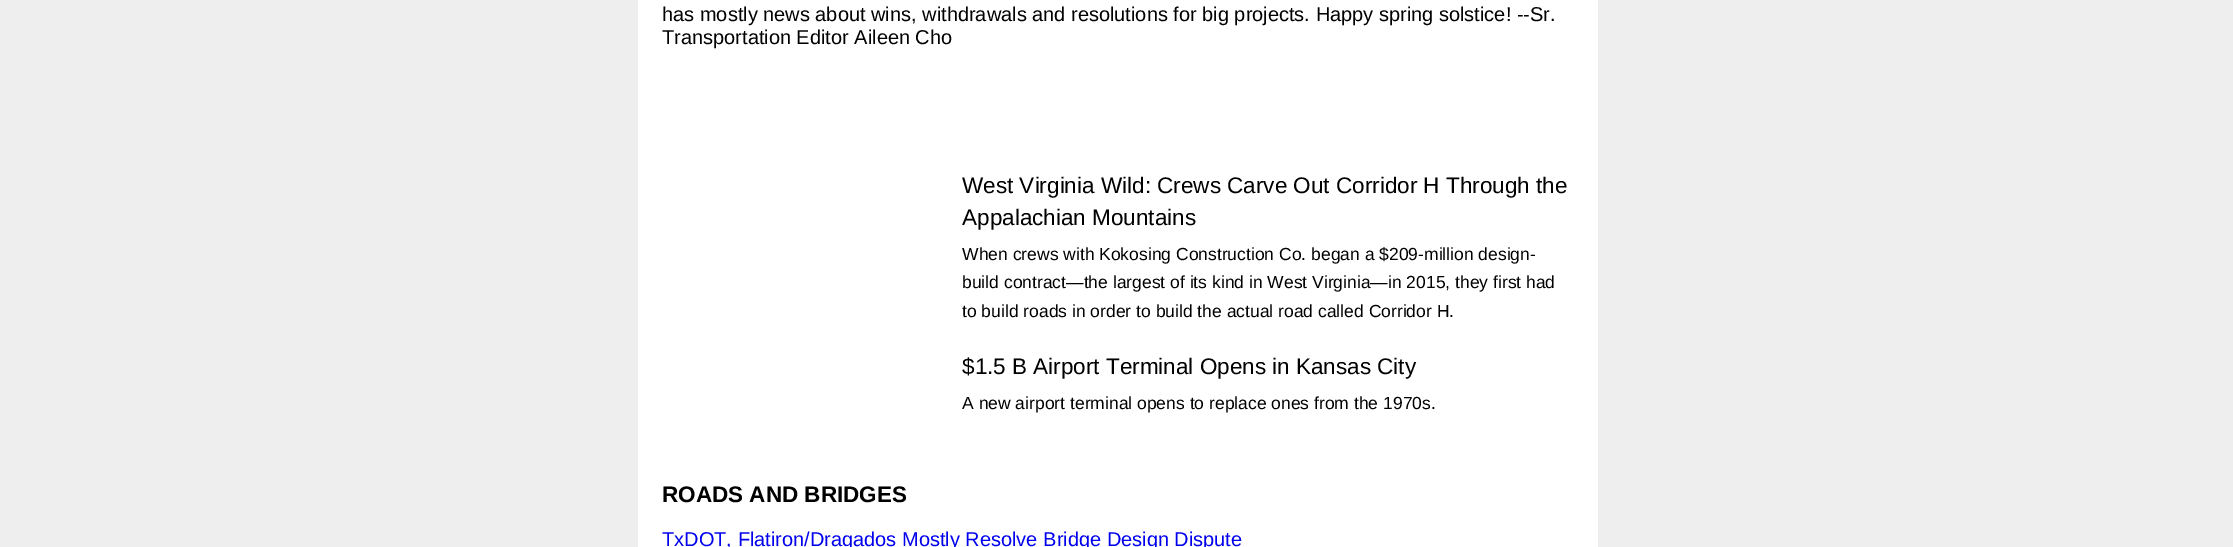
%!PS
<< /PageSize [2233 547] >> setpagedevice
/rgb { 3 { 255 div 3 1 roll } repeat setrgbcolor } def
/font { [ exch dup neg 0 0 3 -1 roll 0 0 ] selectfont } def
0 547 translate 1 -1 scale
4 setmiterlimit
238 238 238 rgb
0 0 2233 547 rectfill
255 255 255 rgb
638 0 960 547 rectfill
/LiberationSans-Regular 20 font
0 0 0 rgb
662 21 moveto (has mostly news about wins, withdrawals and resolutions for big projects. Happy spring solstice! --Sr.) show
662 44 moveto (Transportation Editor Aileen Cho) show
/LiberationSans-Regular 22.5 font
962 193 moveto (West Virginia Wild: Crews Carve Out Corridor H Through the) show
962 225 moveto (Appalachian Mountains) show
/LiberationSans-Regular 17.5 font
[
  [(When crews with Kokosing Construction Co. began a $209-million design-) 962 260]
  [(build contract—the largest of its kind in West Virginia—in 2015, they first had) 962 288]
  [(to build roads in order to build the actual road called Corridor H.) 962 317]
] { aload pop moveto show } forall
/LiberationSans-Regular 22.5 font
962 374 moveto ($1.5 B Airport Terminal Opens in Kansas City) show
/LiberationSans-Regular 17.5 font
962 409 moveto (A new airport terminal opens to replace ones from the 1970s.) show
/LiberationSans-Bold 22.5 font
662 502 moveto (ROADS AND BRIDGES) show
/LiberationSans-Regular 20 font
0 0 238 rgb
662 546 moveto (TxDOT, Flatiron/Dragados Mostly Resolve Bridge Design Dispute) show
showpage
